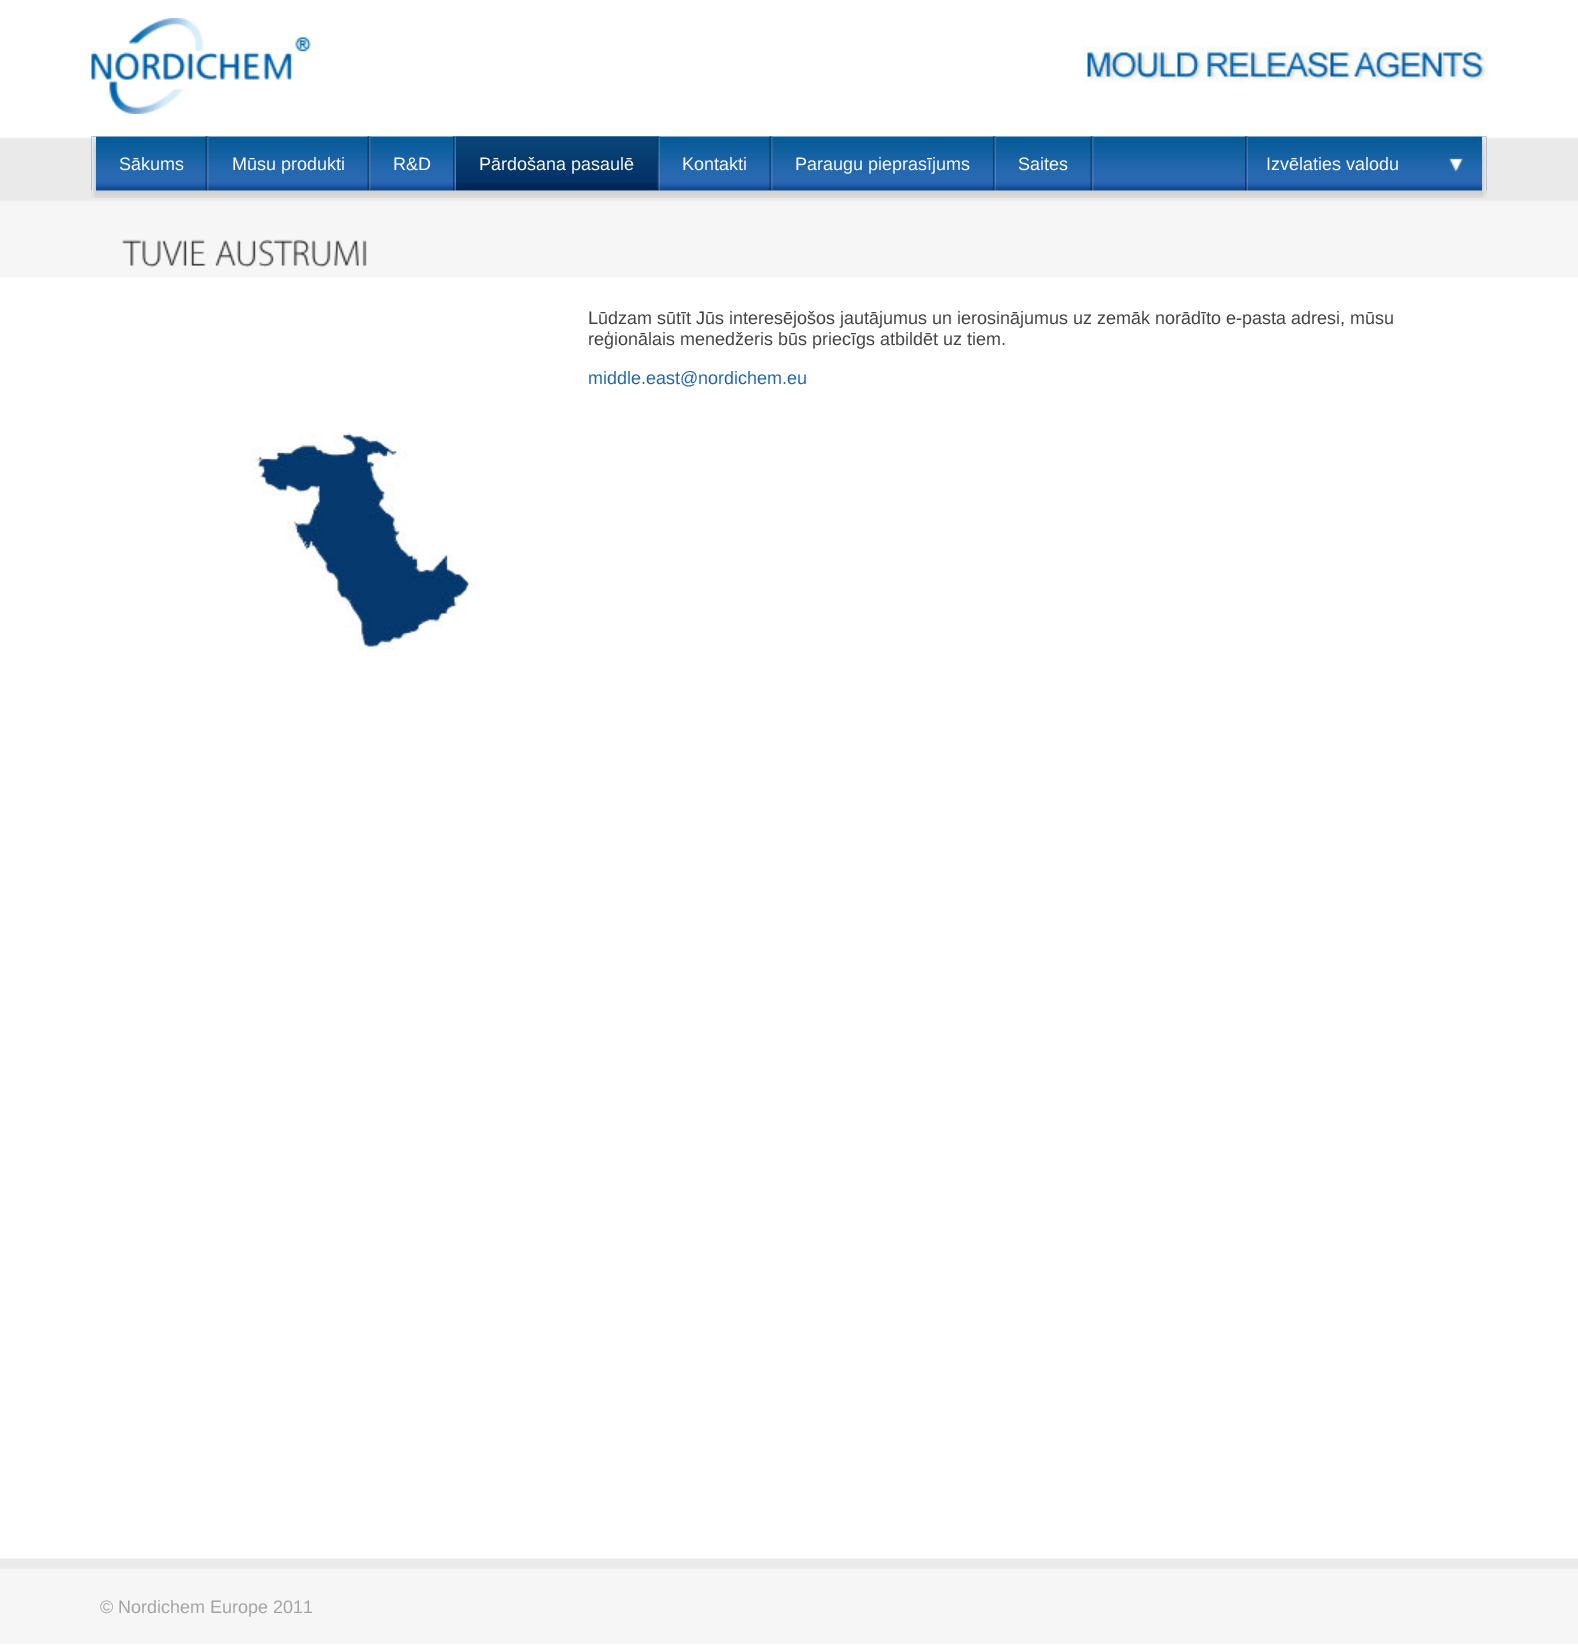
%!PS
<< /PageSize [1578 1646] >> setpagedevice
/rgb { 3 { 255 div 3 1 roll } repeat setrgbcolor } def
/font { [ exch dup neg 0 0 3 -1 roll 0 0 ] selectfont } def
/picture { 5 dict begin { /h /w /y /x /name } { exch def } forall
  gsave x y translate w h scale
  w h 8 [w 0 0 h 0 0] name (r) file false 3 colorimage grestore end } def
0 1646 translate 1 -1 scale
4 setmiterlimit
255 255 255 rgb
0 0 1578 1646 rectfill
(img/1.rgb) 0 137 1578 141 picture
(img/2.rgb) 91 18 220 96 picture
(img/3.rgb) 1083 46 404 37 picture
(img/4.rgb) 91 136 1396 62 picture
(img/5.rgb) 91 136 5 62 picture
(img/6.rgb) 205 136 4 55 picture
(img/6.rgb) 367 136 4 55 picture
(img/7.rgb) 453 136 3 55 picture
(img/8.rgb) 456 136 201 55 picture
(img/9.rgb) 657 136 3 55 picture
(img/6.rgb) 769 136 4 55 picture
(img/9.rgb) 993 136 3 55 picture
(img/6.rgb) 1090 136 4 55 picture
(img/7.rgb) 1245 136 3 55 picture
(img/10.rgb) 1448 158 15 14 picture
(img/11.rgb) 1482 136 5 62 picture
(img/12.rgb) 121 239 85 29 picture
(img/13.rgb) 215 239 152 29 picture
(img/14.rgb) 250 432 228 219 picture
(img/15.rgb) 0 1558 1578 86 picture
/LiberationSans-Regular 18 font
[
  [(Sākums) 119 170]
  [(Mūsu produkti) 232 170]
  [(R&D) 393 170]
  [(Pārdošana pasaulē) 479 170]
  [(Kontakti) 682 170]
  [(Paraugu pieprasījums) 795 170]
  [(Saites) 1018 170]
  [(Izvēlaties valodu) 1266 170]
] { aload pop moveto show } forall
67 67 67 rgb
588 324 moveto (Lūdzam sūtīt Jūs interesējošos jautājumus un ierosinājumus uz zemāk norādīto e-pasta adresi, mūsu) show
588 345 moveto (reģionālais menedžeris būs priecīgs atbildēt uz tiem.) show
32 102 171 rgb
588 384 moveto (middle.east@nordichem.eu) show
164 164 164 rgb
100 1613 moveto (© Nordichem Europe 2011) show
showpage
